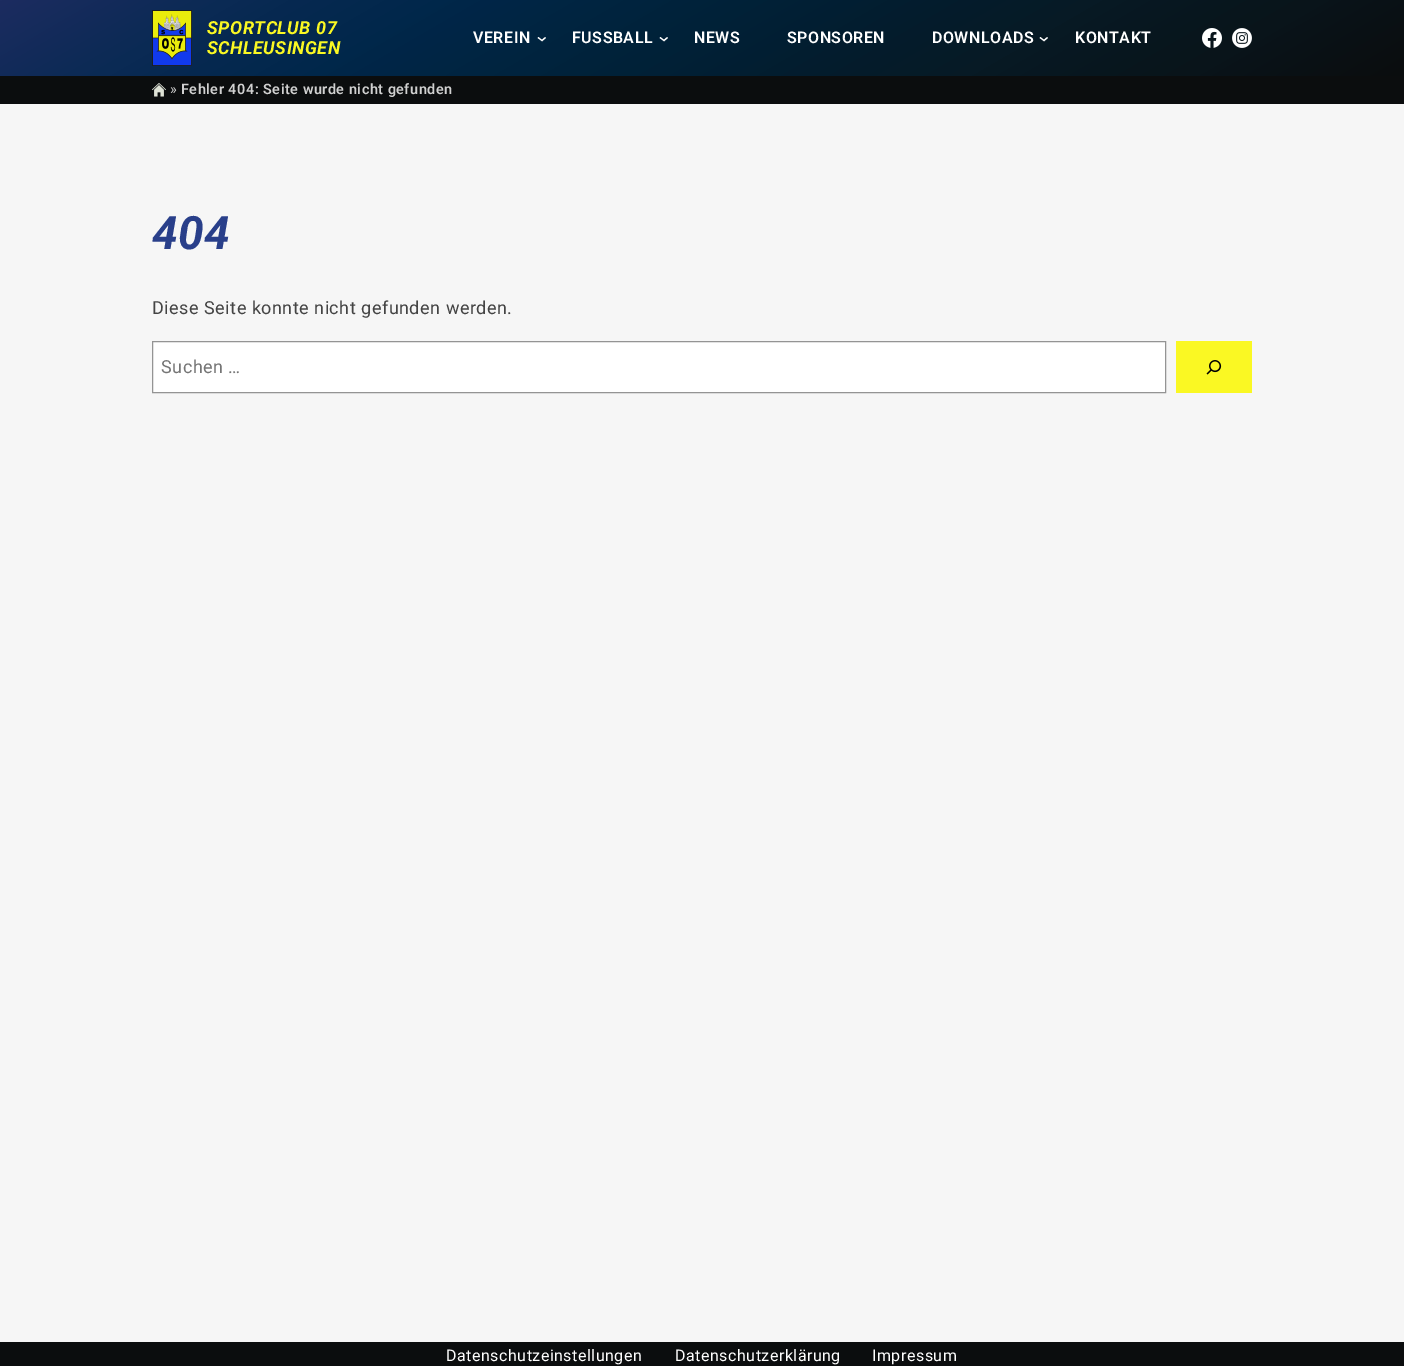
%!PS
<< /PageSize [1404 1366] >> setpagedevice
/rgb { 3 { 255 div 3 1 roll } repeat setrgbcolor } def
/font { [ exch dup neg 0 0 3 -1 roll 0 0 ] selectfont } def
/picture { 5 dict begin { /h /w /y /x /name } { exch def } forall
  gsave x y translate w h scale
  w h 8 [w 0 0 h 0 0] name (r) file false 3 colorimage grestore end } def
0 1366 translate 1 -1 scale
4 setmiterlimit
246 246 246 rgb
0 0 1404 1366 rectfill
gsave 0 0 moveto 1404 0 lineto 1404 76 lineto 0 76 lineto closepath clip newpath
<< /ShadingType 2 /ColorSpace /DeviceRGB /Coords [894 370 510 -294] /Extend [true true] /Function << /FunctionType 3 /Domain [0 1] /Functions [<< /FunctionType 2 /Domain [0 1] /C0 [0.043 0.051 0.055] /C1 [0.035 0.078 0.102] /N 1 >> << /FunctionType 2 /Domain [0 1] /C0 [0.035 0.078 0.102] /C1 [0.027 0.102 0.145] /N 1 >> << /FunctionType 2 /Domain [0 1] /C0 [0.027 0.102 0.145] /C1 [0.008 0.118 0.192] /N 1 >> << /FunctionType 2 /Domain [0 1] /C0 [0.008 0.118 0.192] /C1 [0 0.137 0.239] /N 1 >> << /FunctionType 2 /Domain [0 1] /C0 [0 0.137 0.239] /C1 [0 0.153 0.29] /N 1 >> << /FunctionType 2 /Domain [0 1] /C0 [0 0.153 0.29] /C1 [0.043 0.165 0.333] /N 1 >> << /FunctionType 2 /Domain [0 1] /C0 [0.043 0.165 0.333] /C1 [0.11 0.173 0.376] /N 1 >>] /Bounds [0.14 0.29 0.43 0.57 0.71 0.86] /Encode [0 1 0 1 0 1 0 1 0 1 0 1 0 1] >> >> shfill grestore
(img/1.rgb) 152 10 40 56 picture
255 255 255 rgb
1.2 setlinewidth
538 37.5 moveto 542 40.5 lineto 545.5 37.5 lineto stroke
660 37.5 moveto 664 40.5 lineto 667.5 37.5 lineto stroke
1040 37.5 moveto 1044 40.5 lineto 1047.5 37.5 lineto stroke
(img/2.rgb) 1202 28 20 20 picture
(img/3.rgb) 1232 28 20 20 picture
11 13 14 rgb
0 76 1404 28 rectfill
(img/4.rgb) 152 83 14 14 picture
255 255 255 rgb
152.5 341.5 moveto 1165.5 341.5 lineto 1165.5 392.5 lineto 152.5 392.5 lineto closepath gsave fill grestore
148 148 148 rgb
1 setlinewidth
stroke
250 248 35 rgb
1176 341 76 52 rectfill
(img/5.rgb) 1206 360 16 15 picture
11 13 14 rgb
0 1342 1404 24 rectfill
/Roboto-BoldItalic 18 font
250 248 35 rgb
207 34 moveto 0.5 0 (SPORTCLUB 07) ashow
207 54 moveto 0.5 0 (SCHLEUSINGEN) ashow
/Roboto-SemiBold 16 font
255 255 255 rgb
473 43 moveto 0.5 0 (VEREIN) ashow
572 43 moveto 0.5 0 (FUSSBALL) ashow
694 43 moveto 0.5 0 (NEWS) ashow
787 43 moveto 0.5 0 (SPONSOREN) ashow
932 43 moveto 0.5 0 (DOWNLOADS) ashow
1075 43 moveto 0.5 0 (KONTAKT) ashow
/Roboto-Regular 14.4 font
208 208 208 rgb
170 94 moveto 0.5 0 (») ashow
/Roboto-SemiBold 14.4 font
181 94 moveto 0.5 0 (Fehler 404: Seite wurde nicht gefunden) ashow
/Roboto-BoldItalic 46 font
41 63 138 rgb
152 249 moveto 0.5 0 (404) ashow
/Roboto-Regular 18 font
68 68 68 rgb
152 314 moveto 0.5 0 (Diese Seite konnte nicht gefunden werden.) ashow
117 117 117 rgb
161 373 moveto 0.5 0 (Suchen …) ashow
/Roboto-Regular 16 font
255 255 255 rgb
446 1361 moveto 0.5 0 (Datenschutzeinstellungen) ashow
675 1361 moveto 0.5 0 (Datenschutzerklärung) ashow
872 1361 moveto 0.5 0 (Impressum) ashow
showpage
